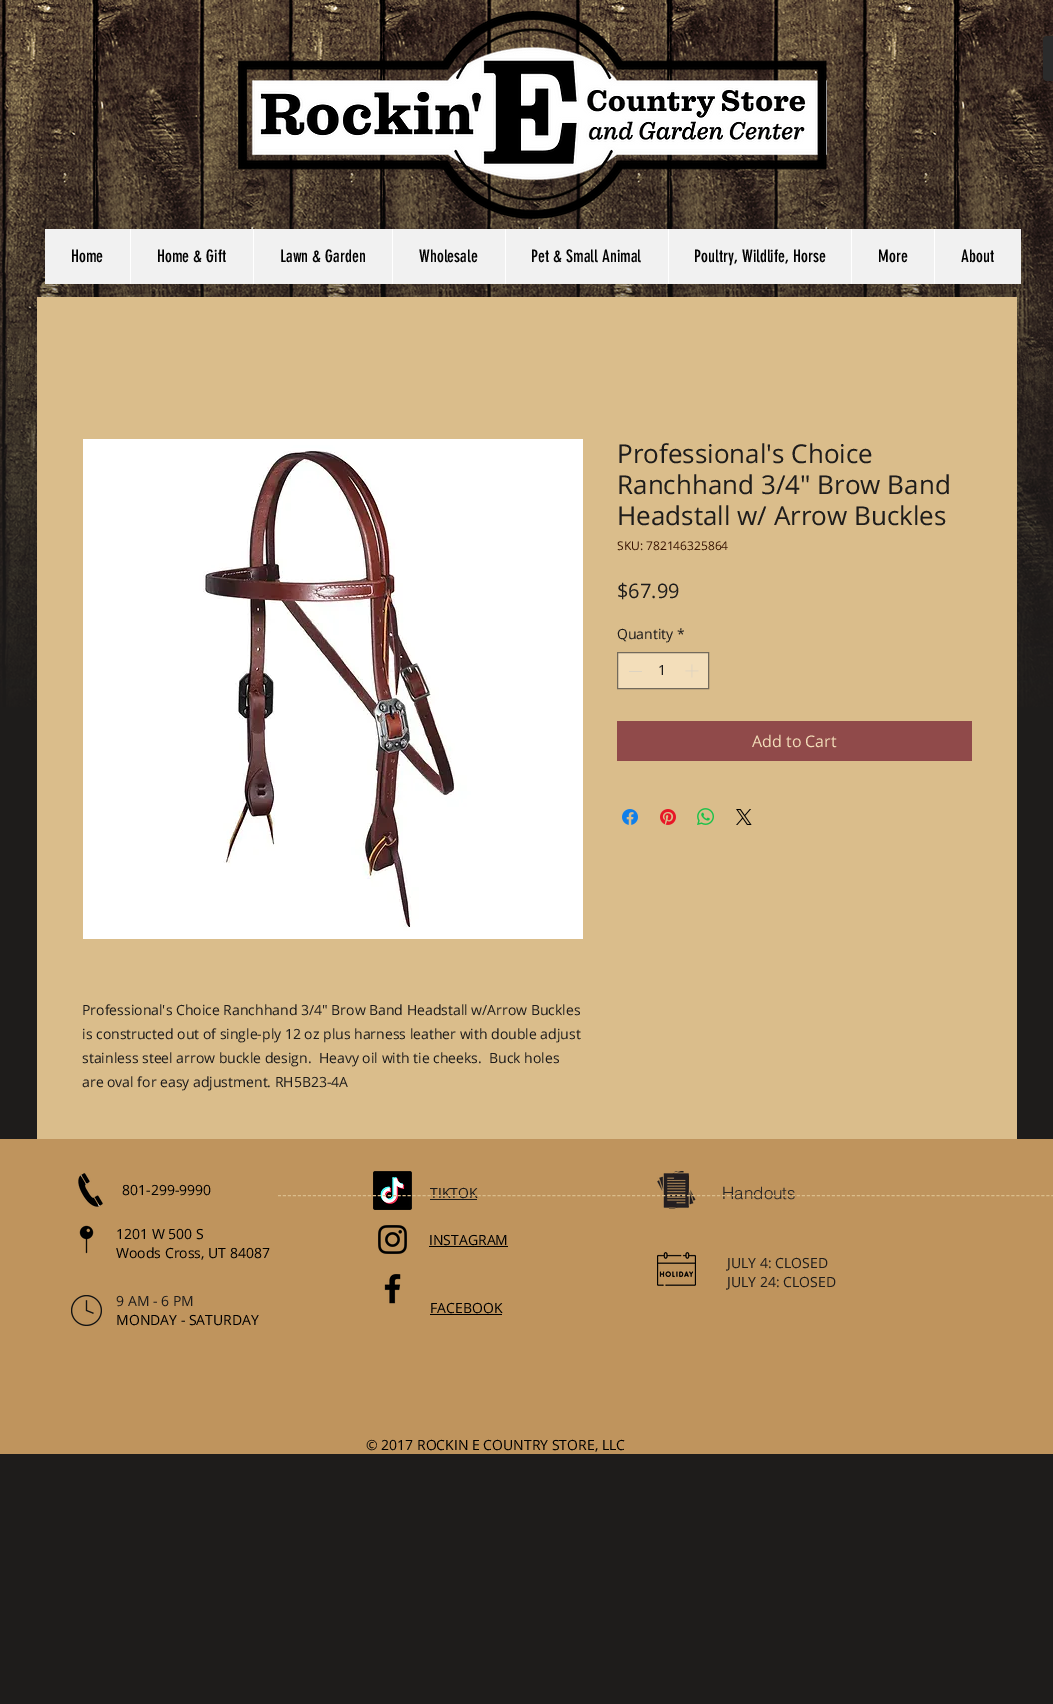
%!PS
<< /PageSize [1053 1704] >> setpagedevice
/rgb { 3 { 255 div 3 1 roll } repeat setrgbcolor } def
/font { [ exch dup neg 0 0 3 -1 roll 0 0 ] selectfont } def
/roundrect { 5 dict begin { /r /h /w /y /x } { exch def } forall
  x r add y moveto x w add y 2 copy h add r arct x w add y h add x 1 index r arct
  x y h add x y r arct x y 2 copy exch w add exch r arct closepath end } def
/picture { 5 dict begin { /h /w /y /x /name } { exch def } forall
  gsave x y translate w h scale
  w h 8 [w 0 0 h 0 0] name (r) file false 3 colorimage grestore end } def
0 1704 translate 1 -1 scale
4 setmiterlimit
30 28 27 rgb
0 0 1053 1704 rectfill
(img/1.rgb) 0 0 1053 707 picture
(img/2.rgb) 238 11 589 208 picture
43 43 43 rgb
1043 36 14 45 4 roundrect fill
[
  [45 229 976 55 241 241 241]
  [130 229 1 55 255 255 255]
  [253 229 1 55 255 255 255]
  [392 229 1 55 255 255 255]
  [505 229 1 55 255 255 255]
  [668 229 1 55 255 255 255]
  [851 229 1 55 255 255 255]
  [934 229 1 55 255 255 255]
  [37 297 980 842 218 189 139]
] { aload pop rgb rectfill } forall
243 222 186 rgb
617.5 652.5 moveto 708.5 652.5 lineto 708.5 688.5 lineto 617.5 688.5 lineto closepath gsave fill grestore
115 106 91 rgb
stroke
221 211 193 rgb
629 671 13 1 rectfill
(img/3.rgb) 685 664 14 14 picture
144 74 74 rgb
617 721 355 40 rectfill
(img/4.rgb) 622 809 16 16 picture
(img/5.rgb) 660 809 16 16 picture
(img/6.rgb) 697 808 17 17 picture
(img/7.rgb) 736 809 16 16 picture
(img/8.rgb) 83 439 500 500 picture
191 148 93 rgb
0 1139 1053 315 rectfill
(img/9.rgb) 78 1173 25 34 picture
(img/10.rgb) 373 1171 39 39 picture
(img/11.rgb) 378 1225 29 29 picture
(img/12.rgb) 384 1274 17 30 picture
30 28 27 rgb
430 1199 47 1 rectfill
(img/13.rgb) 657 1171 39 38 picture
(img/14.rgb) 79 1225 15 29 picture
0 0 0 rgb
429 1246 79 1 rectfill
(img/15.rgb) 657 1252 39 34 picture
(img/16.rgb) 71 1295 31 31 picture
430 1314 72 1 rectfill
/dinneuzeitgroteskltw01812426-Regular 17 font
[
  [(Home) 71 262]
  [(Home & Gift) 157 262]
  [(Lawn & Garden) 280 262]
  [(Wholesale) 419 262]
  [(Pet & Small Animal) 531 262]
  [(Poultry, Wildlife, Horse) 694 262]
  [(More) 878 262]
  [(About) 961 262]
] { aload pop moveto show } forall
/OpenSans-Regular 26 font
30 28 27 rgb
[
  [(Professional's Choice) 617 463]
  [(Ranchhand 3/4" Brow Band) 617 494]
  [(Headstall w/ Arrow Buckles) 617 525]
] { aload pop moveto show } forall
/OpenSans-Regular 12 font
56 20 2 rgb
617 550 moveto (SKU: 782146325864) show
/OpenSans-Regular 20 font
30 28 27 rgb
617 598 moveto ($67.99) show
/OpenSans-Regular 14 font
[
  [(Quantity) 617 639]
  [(*) 677 639]
  [(1) 658 675]
] { aload pop moveto show } forall
/OpenSans-Regular 16 font
243 222 186 rgb
752 747 moveto (Add to Cart) show
/OpenSans-Regular 14 font
30 28 27 rgb
[
  [(Professional's Choice Ranchhand 3/4" Brow Band Headstall w/Arrow Buckles) 82 1015]
  [(is constructed out of single-ply 12 oz plus harness leather with double adjust) 82 1039]
  [(stainless steel arrow buckle design.  Heavy oil with tie cheeks.  Buck holes) 82 1063]
  [(are oval for easy adjustment. RH5B23-4A) 82 1087]
] { aload pop moveto show } forall
0 0 0 rgb
122 1195 moveto (801-299-9990) show
30 28 27 rgb
430 1198 moveto (TIKTOK) show
/helvetica-Light 17 font
40 38 38 rgb
722 1199 moveto (Handouts) show
218 189 139 rgb
[3 1.99] 0 setdash
278 1195.5 moveto 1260 1195.5 lineto stroke
/OpenSans-Regular 14 font
0 0 0 rgb
[
  [(1201 W 500 S) 116 1239]
  [(Woods Cross, UT 84087) 116 1258]
  [(INSTAGRAM) 429 1245]
] { aload pop moveto show } forall
30 28 27 rgb
[
  [(JULY 4: CLOSED) 727 1268]
  [(JULY 24: CLOSED) 727 1287]
  [(9 AM - 6 PM) 116 1306]
] { aload pop moveto show } forall
0 0 0 rgb
[
  [(MONDAY - SATURDAY) 116 1325]
  [(FACEBOOK) 430 1313]
  [(© 2017 ROCKIN E COUNTRY STORE, LLC) 366 1450]
] { aload pop moveto show } forall
showpage
